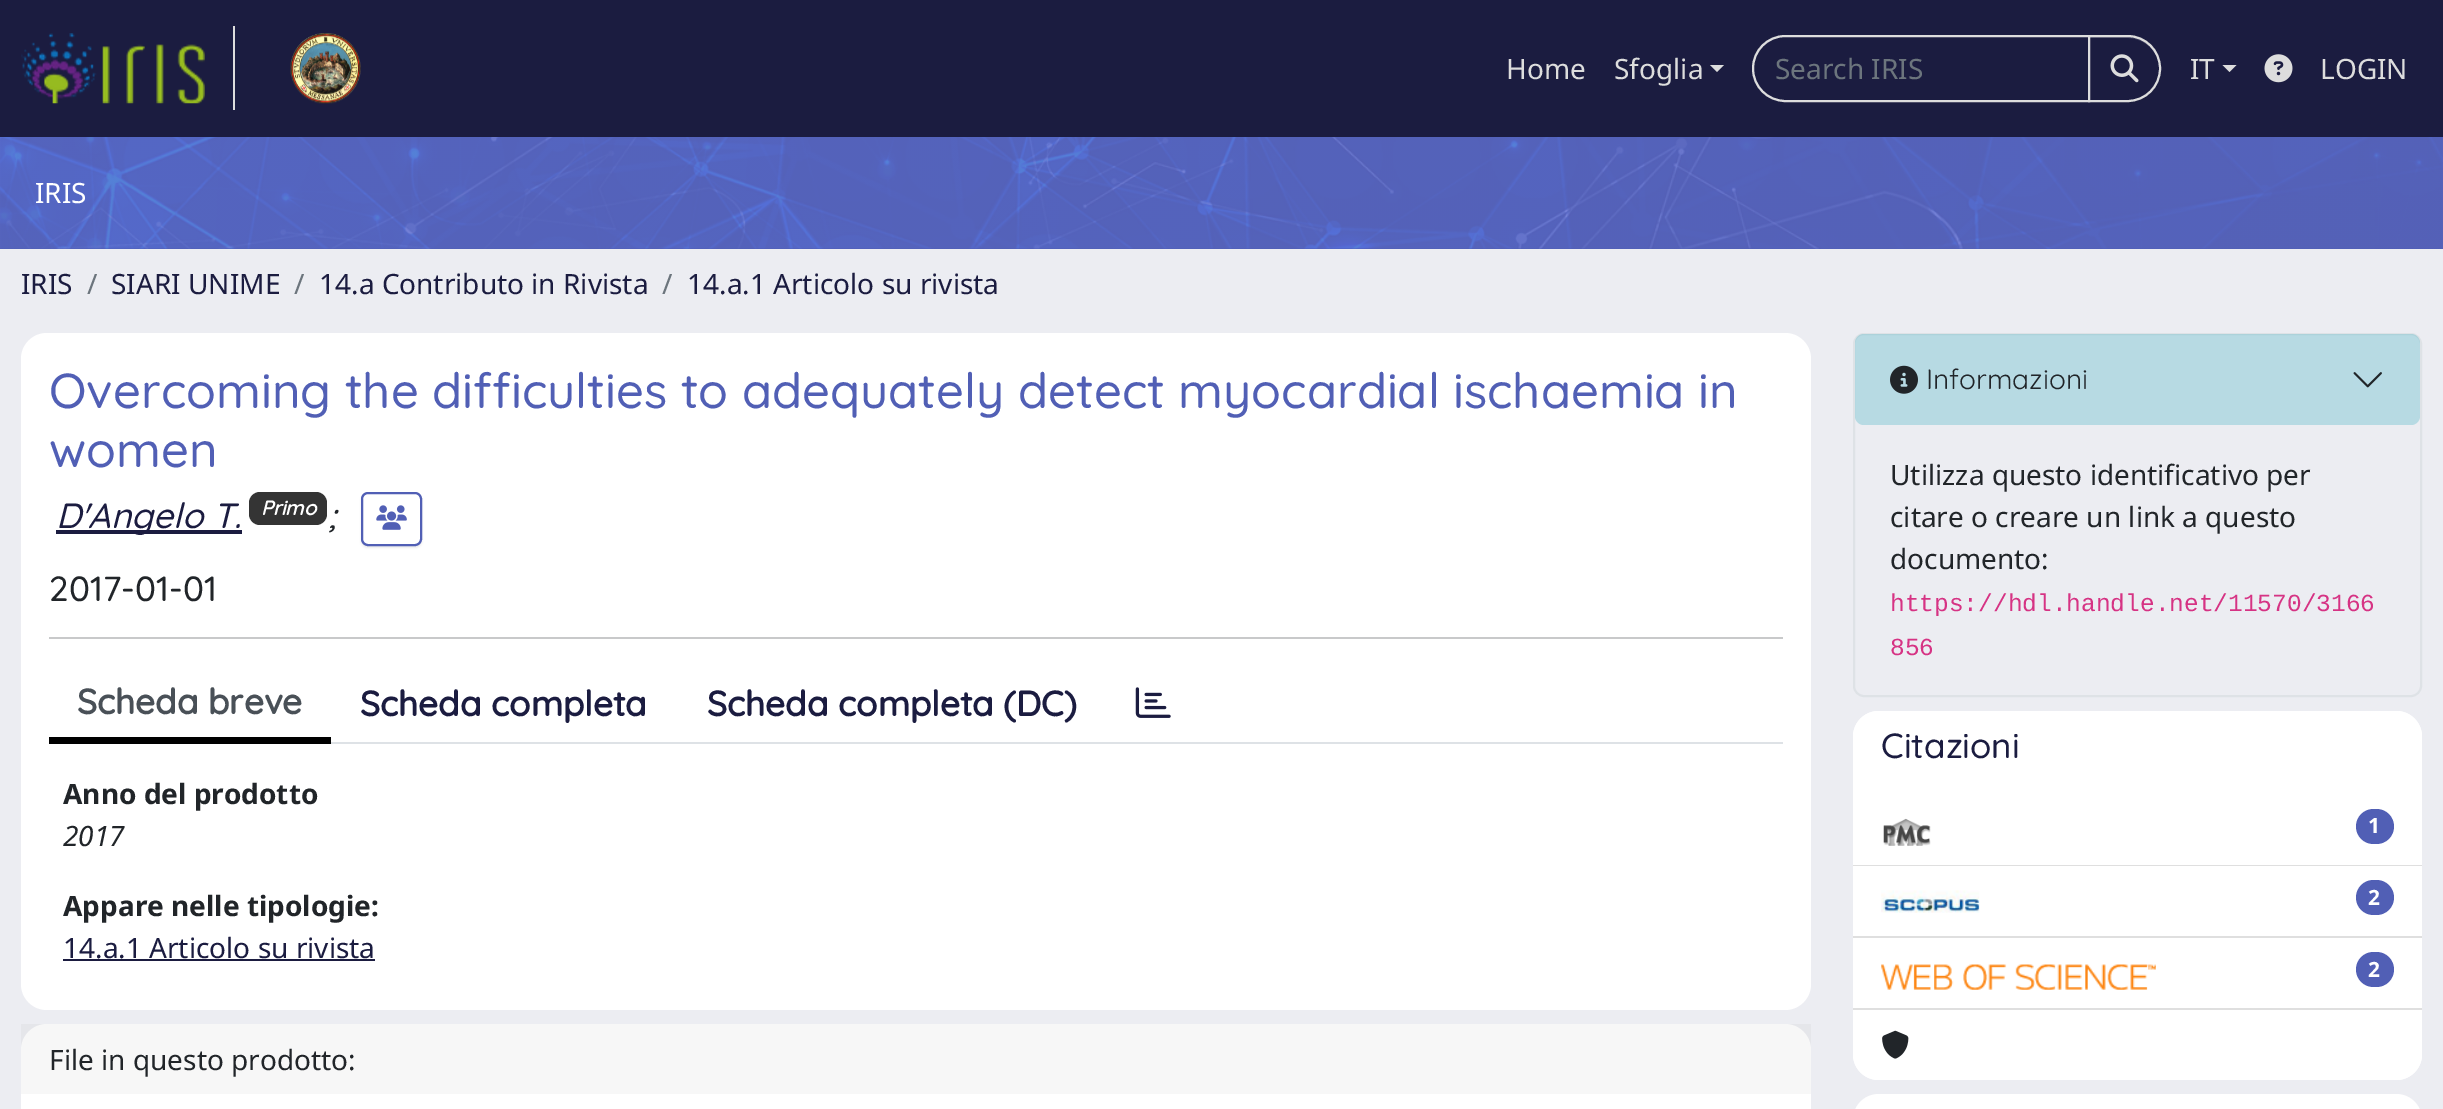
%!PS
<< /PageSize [2443 1109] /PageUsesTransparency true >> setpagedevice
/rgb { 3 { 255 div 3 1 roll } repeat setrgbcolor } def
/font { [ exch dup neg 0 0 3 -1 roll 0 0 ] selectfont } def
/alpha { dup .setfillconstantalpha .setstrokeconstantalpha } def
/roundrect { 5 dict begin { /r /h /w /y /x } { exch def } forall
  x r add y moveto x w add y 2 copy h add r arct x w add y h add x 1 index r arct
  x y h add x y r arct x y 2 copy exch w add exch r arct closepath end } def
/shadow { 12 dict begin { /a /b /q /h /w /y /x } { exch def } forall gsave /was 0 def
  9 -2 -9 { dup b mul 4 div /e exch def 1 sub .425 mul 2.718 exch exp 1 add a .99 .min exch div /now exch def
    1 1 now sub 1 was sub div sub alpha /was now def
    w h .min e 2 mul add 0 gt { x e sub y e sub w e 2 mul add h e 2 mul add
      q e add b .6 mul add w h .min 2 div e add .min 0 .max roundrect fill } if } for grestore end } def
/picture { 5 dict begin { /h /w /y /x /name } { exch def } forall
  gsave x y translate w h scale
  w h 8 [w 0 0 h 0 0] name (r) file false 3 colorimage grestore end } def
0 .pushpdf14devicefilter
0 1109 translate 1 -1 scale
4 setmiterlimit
236 237 242 rgb
0 0 2443 1109 rectfill
27 28 64 rgb
0 0 2443 137 rectfill
221 221 221 rgb
233 26 2 84 rectfill
(img/1.rgb) 21 33 184 71 picture
(img/2.rgb) 290 33 71 71 picture
1710 65 moveto 1724 65 lineto 1717 72 lineto closepath fill
2 setlinewidth
1785.5 36 moveto 2089 36 lineto 2089 101 lineto 1785.5 101 lineto 1767.5 101 1753 86.5 1753 68.5 curveto 1753 50.5 1767.5 36 1785.5 36 curveto closepath stroke
0 0 0 rgb
2088 37 73 66 33 1 0.07 shadow
27 28 64 rgb
2088 35 moveto 2127.5 35 lineto 2146 35 2161 50 2161 68.5 curveto 2161 87 2146 102 2127.5 102 curveto 2088 102 lineto closepath fill
61 62 93 rgb
2090 38 moveto 2128 38 lineto 2145 38 2160 53 2160 69 curveto 2160 68 lineto 2160 51 2146 37 2128 37 curveto 2090 37 lineto closepath fill
221 221 221 rgb
2089 36 moveto 2127.5 36 lineto 2145.5 36 2160 50.5 2160 68.5 curveto 2160 86.5 2145.5 101 2127.5 101 curveto 2089 101 lineto closepath stroke
(img/3.rgb) 2110 54 29 29 picture
2222.5 65 moveto 2236.5 65 lineto 2229.5 72 lineto closepath fill
(img/4.rgb) 2264 54 29 29 picture
81 95 181 rgb
0 137 2443 112 rectfill
(img/5.rgb) 0 137 2443 112 picture
255 255 255 rgb
21 333 1790 677 26 roundrect fill
27 28 64 rgb
56 530 186 4 rectfill
52 52 52 rgb
249 492 78 33 11 roundrect fill
gsave
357 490 moveto 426 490 lineto 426 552 lineto 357 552 lineto closepath 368 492 moveto 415 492 lineto 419 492 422 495 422 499 curveto 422 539 lineto 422 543 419 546 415 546 curveto 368 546 lineto 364 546 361 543 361 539 curveto 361 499 lineto 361 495 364 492 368 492 curveto closepath eoclip newpath
0 0 0 rgb
361 494 61 54 7 1 0.07 shadow
grestore
81 95 181 rgb
362 493 59 52 6 roundrect stroke
(img/6.rgb) 376 505 31 25 picture
[
  [49 637 1734 2 200 201 202]
  [331 742 1452 2 222 226 230]
  [49 737 282 7 0 0 0]
] { aload pop rgb rectfill } forall
(img/7.rgb) 1135 687 36 31 picture
27 28 64 rgb
63 959 312 2 rectfill
255 255 255 rgb
21 1024 1790 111 26 roundrect fill
0.03 alpha
0 0 0 rgb
21 1024 1790 70 rectfill
1 alpha
222 226 230 rgb
1854 334 567 362 10 roundrect stroke
0.25 alpha
23 162 184 rgb
1855 334 565 91 9 roundrect fill
1 alpha
(img/8.rgb) 1890 365 28 29 picture
(img/9.rgb) 2353 372 29 16 picture
255 255 255 rgb
1853 711 569 369 26 roundrect fill
1879 711 moveto 2396 711 lineto 2410.5 711 2422 722.5 2422 737 curveto 2422 795 lineto 1853 795 lineto 1853 737 lineto 1853 722.5 1864.5 711 1879 711 curveto closepath fill
223 223 223 rgb
1853 865 569 1 rectfill
(img/10.rgb) 1883 818 48 28 picture
81 95 181 rgb
2356 809 38 35 17.5 roundrect fill
223 223 223 rgb
1853 936 569 2 rectfill
(img/11.rgb) 1881 890 99 23 picture
81 95 181 rgb
2356 880 38 35 17.5 roundrect fill
223 223 223 rgb
1853 1008 569 2 rectfill
(img/12.rgb) 1881 964 275 26 picture
81 95 181 rgb
2356 952 38 35 17.5 roundrect fill
255 255 255 rgb
1853 1010 moveto 2422 1010 lineto 2422 1054 lineto 2422 1068.5 2410.5 1080 2396 1080 curveto 1879 1080 lineto 1864.5 1080 1853 1068.5 1853 1054 curveto closepath fill
(img/13.rgb) 1882 1030 27 29 picture
1879 1094 moveto 2396 1094 lineto 2410.5 1094 2422 1105.5 2422 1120 curveto 2422 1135 lineto 1853 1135 lineto 1853 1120 lineto 1853 1105.5 1864.5 1094 1879 1094 curveto closepath fill
/NotoSans-Regular 28 font
221 221 221 rgb
1506 79 moveto (Home) show
1614 79 moveto (Sfoglia) show
108 117 125 rgb
1775 79 moveto (Search IRIS) show
221 221 221 rgb
2190 79 moveto (IT) show
2320 79 moveto (LOGIN) show
255 255 255 rgb
35 203 moveto (IRIS) show
27 28 64 rgb
21 294 moveto (IRIS) show
108 117 125 rgb
87 294 moveto (/) show
27 28 64 rgb
111 294 moveto (SIARI UNIME) show
108 117 125 rgb
294 294 moveto (/) show
27 28 64 rgb
319 294 moveto (14.a Contributo in Rivista) show
108 117 125 rgb
662 294 moveto (/) show
27 28 64 rgb
687 294 moveto (14.a.1 Articolo su rivista) show
/Quicksand-Medium 49 font
81 95 181 rgb
49 408 moveto (Overcoming the difficulties to adequately detect myocardial ischaemia in) show
49 467 moveto (women) show
/Quicksand-MediumItalic 35 font
27 28 64 rgb
56 528 moveto (D'Angelo T.) show
/Quicksand-BoldItalic 20 font
255 255 255 rgb
261 515 moveto (Primo) show
/Quicksand-MediumItalic 35 font
33 37 41 rgb
328 528 moveto (;) show
/Quicksand-Medium 35 font
49 601 moveto (2017-01-01) show
/Quicksand-Bold 35 font
73 80 87 rgb
77 714 moveto (Scheda breve) show
27 28 64 rgb
360 716 moveto (Scheda completa) show
707 716 moveto (Scheda completa \(DC\)) show
/NotoSans-Bold 28 font
33 37 41 rgb
63 804 moveto (Anno del prodotto) show
/NotoSans-Italic 28 font
63 846 moveto (2017) show
/NotoSans-Bold 28 font
63 916 moveto (Appare nelle tipologie:) show
/NotoSans-Regular 28 font
27 28 64 rgb
63 958 moveto (14.a.1 Articolo su rivista) show
33 37 41 rgb
49 1070 moveto (File in questo prodotto:) show
/Quicksand-Regular 28 font
1926 389 moveto (Informazioni) show
/NotoSans-Regular 28 font
[
  [(Utilizza questo identificativo per) 1890 485]
  [(citare o creare un link a questo) 1890 527]
  [(documento:) 1890 569]
] { aload pop moveto show } forall
/LiberationMono-Regular 24.5 font
214 51 132 rgb
1890 611 moveto (https://hdl.handle.net/11570/3166) show
1890 655 moveto (856) show
/Quicksand-Medium 35 font
27 28 64 rgb
1881 758 moveto (Citazioni) show
/NotoSans-Bold 21 font
255 255 255 rgb
[
  [(1) 2368 833]
  [(2) 2368 905]
  [(2) 2368 977]
] { aload pop moveto show } forall
.poppdf14devicefilter showpage
